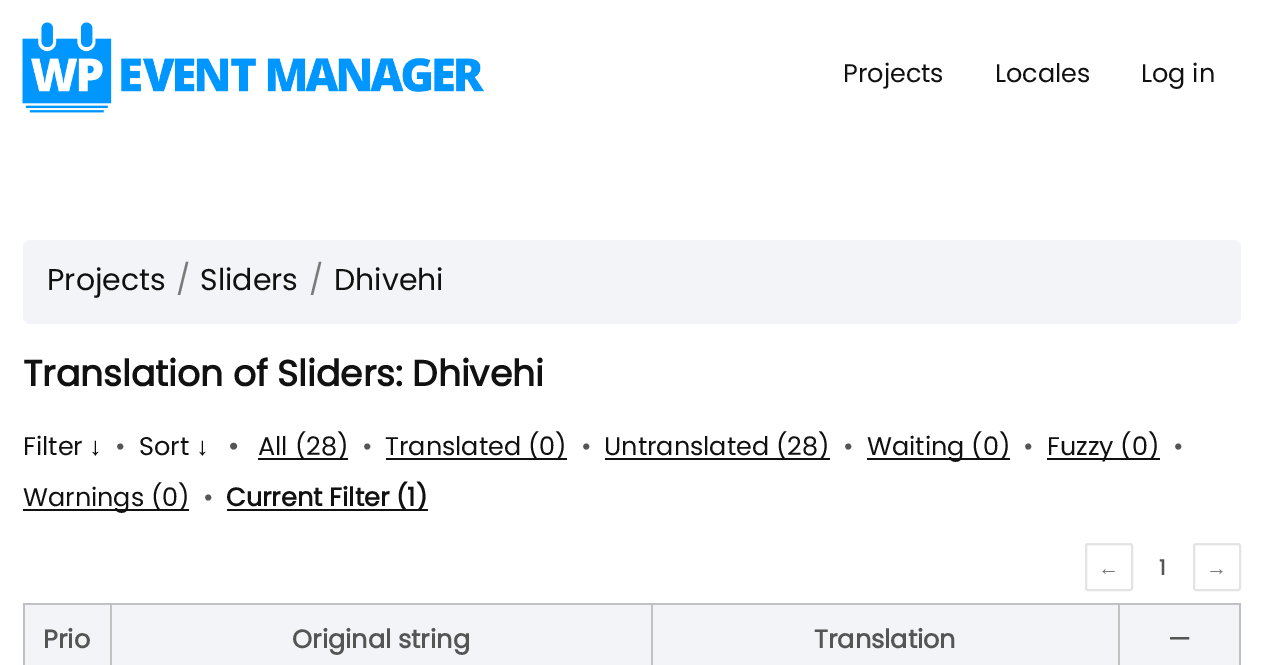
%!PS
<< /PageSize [1262 665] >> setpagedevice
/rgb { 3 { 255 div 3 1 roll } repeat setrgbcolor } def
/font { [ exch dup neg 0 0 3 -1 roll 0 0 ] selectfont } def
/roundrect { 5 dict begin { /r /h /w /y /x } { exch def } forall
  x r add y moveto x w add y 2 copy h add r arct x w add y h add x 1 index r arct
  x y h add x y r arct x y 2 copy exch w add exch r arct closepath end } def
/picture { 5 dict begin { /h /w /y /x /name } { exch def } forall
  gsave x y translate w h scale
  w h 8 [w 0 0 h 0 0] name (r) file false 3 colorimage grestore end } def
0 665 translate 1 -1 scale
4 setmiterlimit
255 255 255 rgb
0 0 1262 665 rectfill
(img/1.rgb) 22 22 463 91 picture
242 244 248 rgb
23 240 1218 84 8 roundrect fill
[
  [258 458 90 2 17 17 17]
  [386 458 181 2 17 17 17]
  [605 458 225 2 17 17 17]
  [867 458 143 2 17 17 17]
  [1047 458 113 2 17 17 17]
  [23 509 166 2 17 17 17]
  [227 509 201 2 17 17 17]
] { aload pop rgb rectfill } forall
228 228 228 rgb
2 setlinewidth
1086 544 46 46 2 roundrect stroke
1194 544 46 46 2 roundrect stroke
[
  [23 603 1218 2 193 193 193]
  [1239 603 2 62 193 193 193]
  [23 603 2 62 193 193 193]
  [25 605 85 60 242 244 248]
  [112 605 539 60 242 244 248]
  [110 603 2 62 193 193 193]
  [653 605 465 60 242 244 248]
  [651 603 2 62 193 193 193]
  [1120 605 119 60 242 244 248]
  [1118 603 2 62 193 193 193]
] { aload pop rgb rectfill } forall
/Poppins-Regular 25.5 font
17 17 17 rgb
[
  [(Projects) 843 82]
  [(Locales) 995 82]
  [(Log in) 1141 82]
] { aload pop moveto show } forall
/Poppins-Regular 30 font
47 290 moveto (Projects) show
122 122 122 rgb
176 290 moveto (/) show
17 17 17 rgb
200 290 moveto (Sliders) show
122 122 122 rgb
309 290 moveto (/) show
17 17 17 rgb
334 290 moveto (Dhivehi) show
/Poppins-Bold 36 font
23 386 moveto (Translation of Sliders: Dhivehi) show
/Poppins-Regular 25.5 font
23 455 moveto (Filter) show
/LiberationSerif-Regular 25.5 font
89 455 moveto (↓) show
/Poppins-Regular 25.5 font
85 85 85 rgb
115 455 moveto (•) show
17 17 17 rgb
139 455 moveto (Sort) show
/LiberationSerif-Regular 25.5 font
196 455 moveto (↓) show
/Poppins-Bold 25.5 font
85 85 85 rgb
228 455 moveto (•) show
/Poppins-Regular 25.5 font
17 17 17 rgb
258 455 moveto (All \(28\)) show
85 85 85 rgb
362 455 moveto (•) show
17 17 17 rgb
385 455 moveto (Translated \(0\)) show
85 85 85 rgb
581 455 moveto (•) show
17 17 17 rgb
604 455 moveto (Untranslated \(28\)) show
85 85 85 rgb
843 455 moveto (•) show
17 17 17 rgb
867 455 moveto (Waiting \(0\)) show
85 85 85 rgb
1023 455 moveto (•) show
17 17 17 rgb
1047 455 moveto (Fuzzy \(0\)) show
85 85 85 rgb
1173 455 moveto (•) show
17 17 17 rgb
23 506 moveto (Warnings \(0\)) show
85 85 85 rgb
203 506 moveto (•) show
/Poppins-Bold 25.5 font
17 17 17 rgb
226 506 moveto (Current Filter \(1\)) show
/LiberationSerif-Regular 21 font
122 122 122 rgb
1098 575 moveto (←) show
/Poppins-Bold 21 font
85 85 85 rgb
1159 575 moveto (1) show
/LiberationSerif-Regular 21 font
122 122 122 rgb
1206 575 moveto (→) show
/Poppins-Bold 25.5 font
85 85 85 rgb
[
  [(Prio) 43 648]
  [(Original string) 292 648]
  [(Translation) 814 648]
  [(—) 1168 648]
] { aload pop moveto show } forall
showpage
